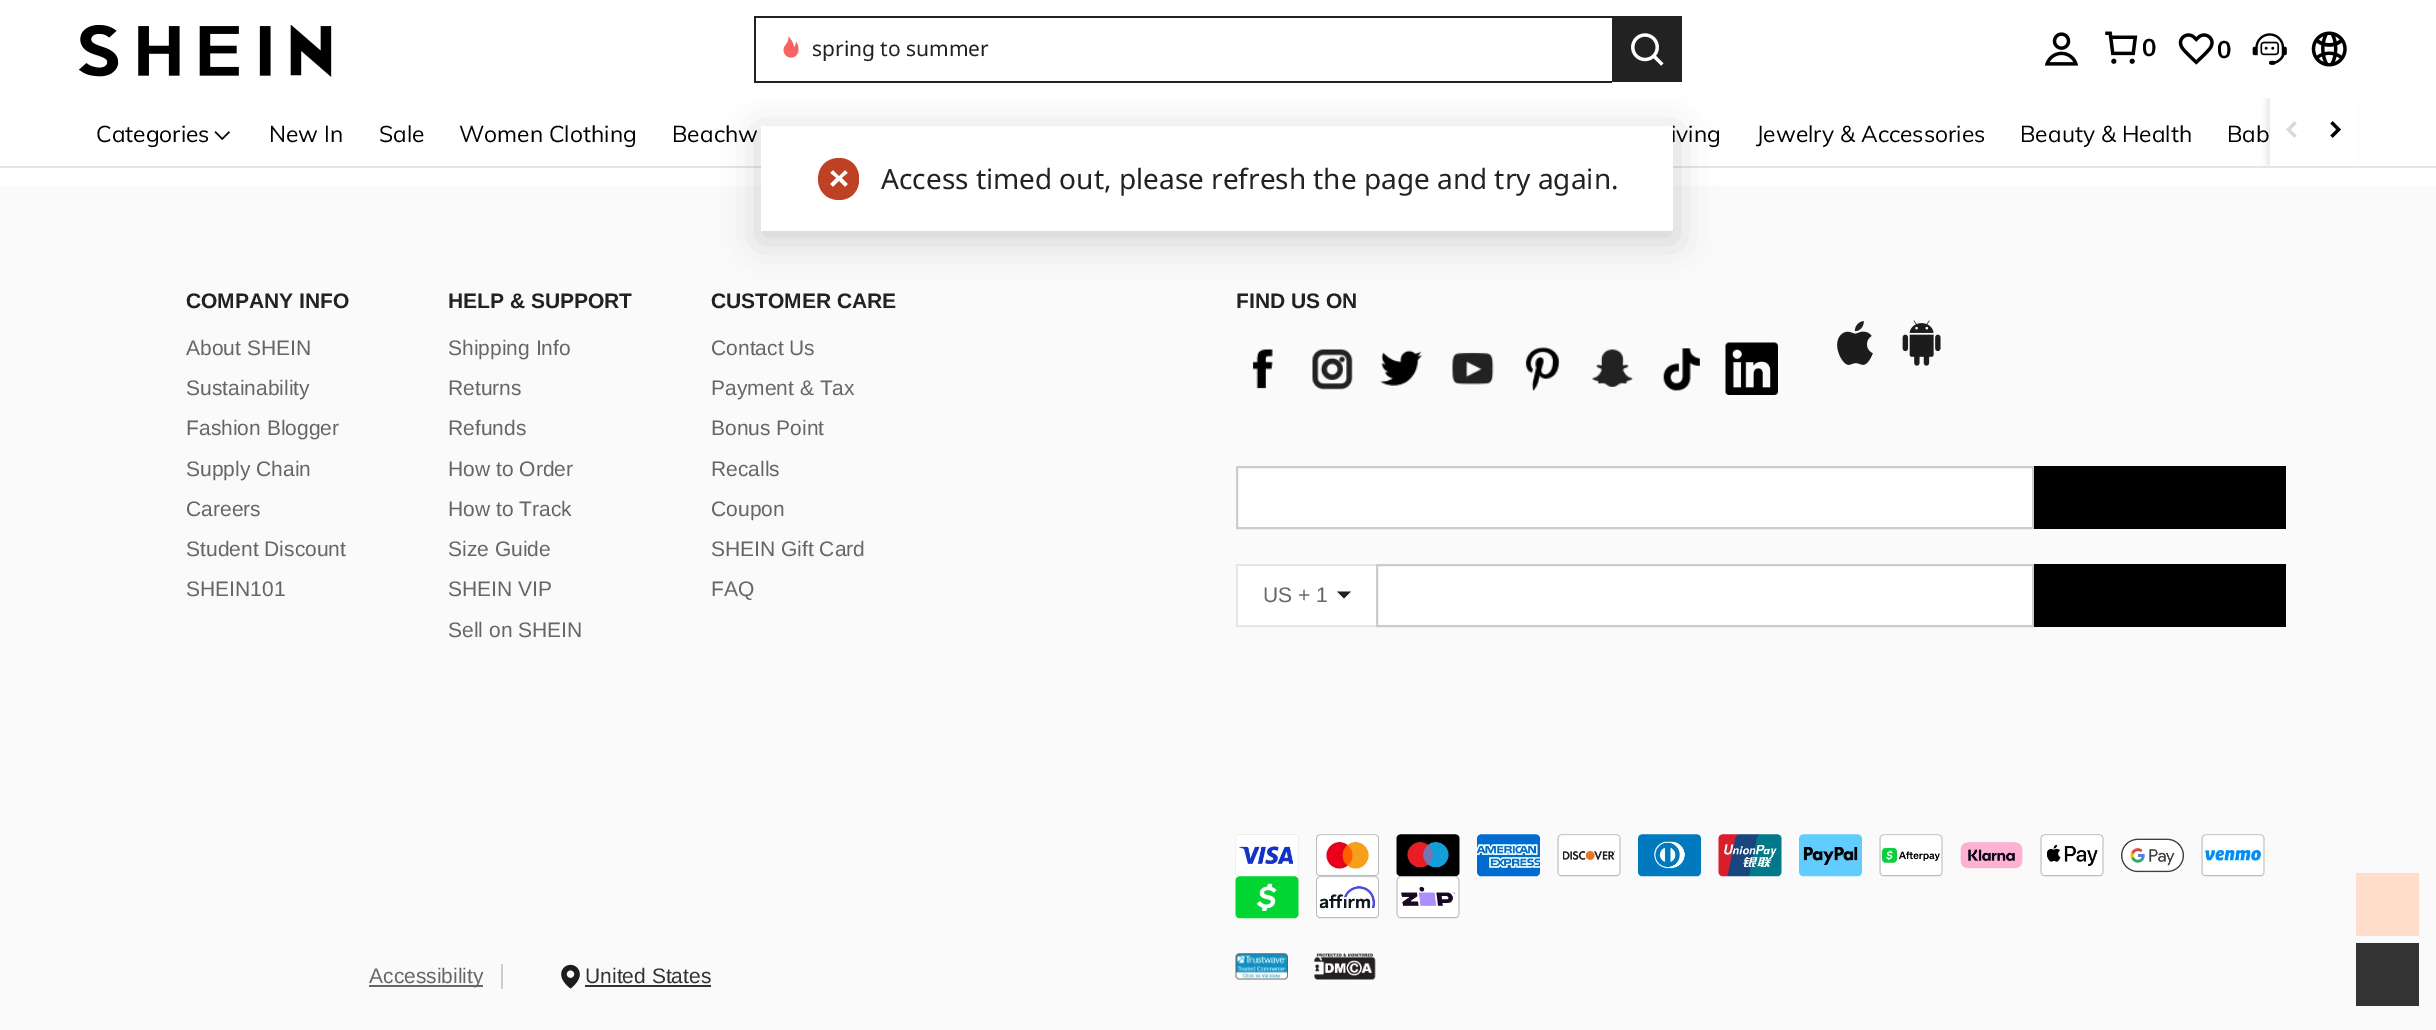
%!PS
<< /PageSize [2436 1030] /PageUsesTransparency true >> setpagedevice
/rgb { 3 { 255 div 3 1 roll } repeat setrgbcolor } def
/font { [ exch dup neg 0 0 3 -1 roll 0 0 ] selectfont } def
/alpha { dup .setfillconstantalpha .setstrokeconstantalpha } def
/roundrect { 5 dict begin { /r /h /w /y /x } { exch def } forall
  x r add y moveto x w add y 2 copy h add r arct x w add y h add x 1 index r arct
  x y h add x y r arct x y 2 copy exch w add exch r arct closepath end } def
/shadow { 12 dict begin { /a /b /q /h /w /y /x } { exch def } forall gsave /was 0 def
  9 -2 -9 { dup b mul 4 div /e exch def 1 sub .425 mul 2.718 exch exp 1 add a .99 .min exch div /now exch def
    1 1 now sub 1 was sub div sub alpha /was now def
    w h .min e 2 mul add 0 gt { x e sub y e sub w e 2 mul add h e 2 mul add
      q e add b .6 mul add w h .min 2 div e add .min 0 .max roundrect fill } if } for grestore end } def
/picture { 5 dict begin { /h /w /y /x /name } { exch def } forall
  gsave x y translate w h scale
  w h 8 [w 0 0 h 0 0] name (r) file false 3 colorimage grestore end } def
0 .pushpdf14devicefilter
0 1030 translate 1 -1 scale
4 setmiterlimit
255 255 255 rgb
0 0 2436 1030 rectfill
(img/1.rgb) 79 25 253 52 picture
[
  [754 16 858 2 34 34 34]
  [754 81 858 2 34 34 34]
  [754 16 2 66 34 34 34]
] { aload pop rgb rectfill } forall
(img/2.rgb) 783 36 16 22 picture
1612 16 70 66 rectfill
(img/3.rgb) 1631 33 33 33 picture
(img/4.rgb) 2044 32 35 34 picture
(img/5.rgb) 2105 31 33 33 picture
(img/6.rgb) 2178 33 36 32 picture
(img/7.rgb) 2252 33 35 32 picture
(img/8.rgb) 2311 31 36 36 picture
229 229 229 rgb
0 166 2436 2 rectfill
(img/9.rgb) 214 131 16 9 picture
gsave
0 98 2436 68 rectclip
0 0 0 rgb
2266 98 88 68 0 2.5 0.08 shadow
grestore
255 255 255 rgb
2270 98 87 68 rectfill
(img/10.rgb) 2286 121 11 17 picture
(img/11.rgb) 2330 121 11 17 picture
250 250 250 rgb
0 186 2436 844 rectfill
(img/12.rgb) 1252 349 21 40 picture
(img/13.rgb) 1312 349 41 41 picture
(img/14.rgb) 1380 350 43 36 picture
(img/15.rgb) 1452 352 42 33 picture
(img/16.rgb) 1525 347 35 44 picture
(img/17.rgb) 1592 349 41 38 picture
(img/18.rgb) 1663 348 37 43 picture
(img/19.rgb) 1725 342 53 53 picture
(img/20.rgb) 1837 321 36 44 picture
(img/21.rgb) 1902 320 39 46 picture
255 255 255 rgb
1237 467 moveto 2033 467 lineto 2033 528 lineto 1237 528 lineto closepath gsave fill grestore
204 204 204 rgb
2 setlinewidth
stroke
[
  [2034 466 252 63 0 0 0]
  [1238 566 138 59 255 255 255]
  [1236 564 140 2 229 229 229]
  [1236 625 140 2 229 229 229]
  [1236 564 2 63 229 229 229]
] { aload pop rgb rectfill } forall
34 34 34 rgb
1337 591.5 moveto 1351 591.5 lineto 1344 598.5 lineto closepath fill
255 255 255 rgb
1377 565 moveto 2033 565 lineto 2033 626 lineto 1377 626 lineto closepath gsave fill grestore
204 204 204 rgb
stroke
0 0 0 rgb
2034 564 252 63 rectfill
(img/22.rgb) 1235 834 64 43 picture
(img/23.rgb) 1316 834 63 43 picture
(img/24.rgb) 1396 834 64 43 picture
(img/25.rgb) 1477 834 63 43 picture
(img/26.rgb) 1557 834 64 43 picture
(img/27.rgb) 1638 834 63 43 picture
(img/28.rgb) 1718 834 64 43 picture
(img/29.rgb) 1799 834 63 43 picture
(img/30.rgb) 1879 834 64 43 picture
(img/31.rgb) 1960 842 63 27 picture
(img/32.rgb) 2040 834 64 43 picture
(img/33.rgb) 2121 838 63 35 picture
(img/34.rgb) 2201 834 64 43 picture
(img/35.rgb) 1235 876 64 43 picture
(img/36.rgb) 1316 876 63 43 picture
(img/37.rgb) 1396 876 64 43 picture
204 204 204 rgb
501 964 2 25 rectfill
102 102 102 rgb
369 985 114 2 rectfill
(img/38.rgb) 561 964 19 25 picture
50 50 50 rgb
585 985 126 2 rectfill
(img/39.rgb) 1235 953 53 27 picture
(img/40.rgb) 1314 953 62 27 picture
255 221 202 rgb
2356 873 63 63 rectfill
51 51 51 rgb
2356 943 63 63 rectfill
0 0 0 rgb
758 130 919 112 0 17.5 0.16 shadow
/NotoSans-Regular 21 font
34 34 34 rgb
812 56 moveto (spring to summer) show
/Muli-Bold 24 font
0 0 0 rgb
2142 56 moveto (0) show
2217 58 moveto (0) show
/Muli-Regular 22.75 font
[
  [(Categories) 96 142]
  [(New In) 269 142]
  [(Sale) 379 142]
  [(Women Clothing) 459 142]
  [(Beachw) 672 142]
  [(iving) 1671 142]
  [(Jewelry & Accessories) 1756 142]
  [(Beauty & Health) 2020 142]
  [(Bab) 2227 142]
] { aload pop moveto show } forall
/LiberationSans-Bold 21 font
34 34 34 rgb
186 308 moveto (COMPANY INFO) show
/LiberationSans-Regular 21 font
102 102 102 rgb
[
  [(About SHEIN) 186 355]
  [(Sustainability) 186 395]
  [(Fashion Blogger) 186 435]
  [(Supply Chain) 186 476]
  [(Careers) 186 516]
  [(Student Discount) 186 556]
  [(SHEIN101) 186 596]
] { aload pop moveto show } forall
/LiberationSans-Bold 21 font
34 34 34 rgb
448 308 moveto (HELP & SUPPORT) show
/LiberationSans-Regular 21 font
102 102 102 rgb
[
  [(Shipping Info) 448 355]
  [(Returns) 448 395]
  [(Refunds) 448 435]
  [(How to Order) 448 476]
  [(How to Track) 448 516]
  [(Size Guide) 448 556]
  [(SHEIN VIP) 448 596]
  [(Sell on SHEIN) 448 637]
] { aload pop moveto show } forall
/LiberationSans-Bold 21 font
34 34 34 rgb
711 308 moveto (CUSTOMER CARE) show
/LiberationSans-Regular 21 font
102 102 102 rgb
[
  [(Contact Us) 711 355]
  [(Payment & Tax) 711 395]
  [(Bonus Point) 711 435]
  [(Recalls) 711 476]
  [(Coupon) 711 516]
  [(SHEIN Gift Card) 711 556]
  [(FAQ) 711 596]
] { aload pop moveto show } forall
/LiberationSans-Bold 21 font
34 34 34 rgb
1236 308 moveto (FIND US ON) show
/LiberationSans-Regular 21 font
102 102 102 rgb
1263 602 moveto (US + 1) show
369 983 moveto (Accessibility) show
50 50 50 rgb
585 983 moveto (United States) show
255 255 255 rgb
761 126 912 105 rectfill
gsave
817 158 42 42 rectclip
191 65 35 rgb
839 158 moveto 866 158 866 200 839 200 curveto 811 200 811 158 839 158 curveto closepath 836 178 moveto 830 184 lineto 833 187 lineto 839 181 lineto 845 187 lineto 848 184 lineto 842 178 lineto 848 173 lineto 845 170 lineto 839 176 lineto 833 170 lineto 830 173 lineto closepath fill
grestore
/NotoSans-Regular 28 font
34 34 34 rgb
881 189 moveto (Access timed out, please refresh the page and try again.) show
.poppdf14devicefilter showpage
